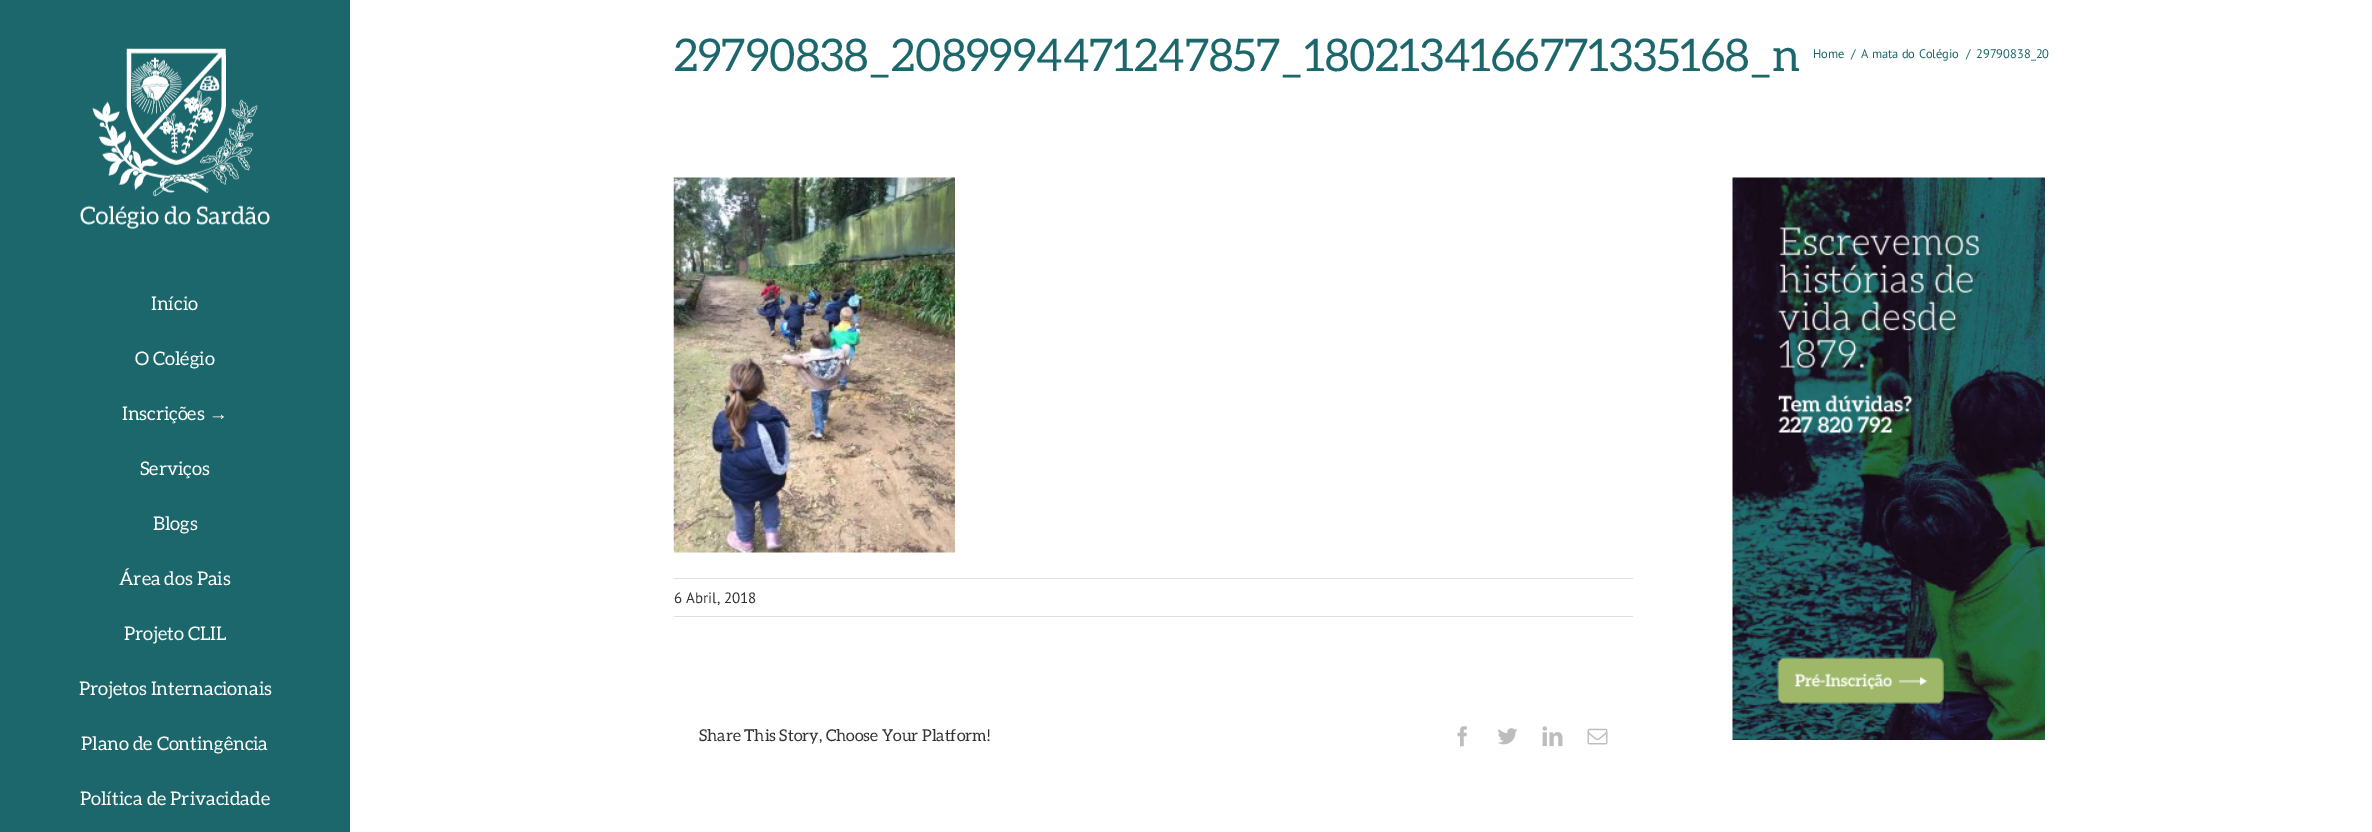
%!PS
<< /PageSize [2372 832] >> setpagedevice
/rgb { 3 { 255 div 3 1 roll } repeat setrgbcolor } def
/font { [ exch dup neg 0 0 3 -1 roll 0 0 ] selectfont } def
/picture { 5 dict begin { /h /w /y /x /name } { exch def } forall
  gsave x y translate w h scale
  w h 8 [w 0 0 h 0 0] name (r) file false 3 colorimage grestore end } def
0 832 translate 1 -1 scale
4 setmiterlimit
255 255 255 rgb
0 0 2372 832 rectfill
27 103 107 rgb
0 0 350 832 rectfill
(img/1.rgb) 80 48 190 181 picture
(img/2.rgb) 673 177 282 376 picture
224 222 222 rgb
674 578 959 1 rectfill
674 616 959 1 rectfill
(img/3.rgb) 1457 726 10 21 picture
(img/4.rgb) 1498 728 20 17 picture
(img/5.rgb) 1542 726 21 21 picture
(img/6.rgb) 1587 728 21 17 picture
(img/7.rgb) 1732 177 313 563 picture
/Aleo-Regular 45 font
27 103 107 rgb
674 71 moveto (29790838_2089994471247857_1802134166771335168_n) show
/PTSans-Regular 12.5 font
[
  [(Home) 1813 58]
  [(/) 1851 58]
  [(A mata do Colégio) 1861 58]
  [(/) 1966 58]
  [(29790838_20) 1976 58]
] { aload pop moveto show } forall
/Aleo-Regular 18.75 font
255 255 255 rgb
[
  [(Início) 151 310]
  [(O Colégio) 135 365]
  [(Inscrições) 122 420]
] { aload pop moveto show } forall
/LiberationSans-Regular 18.75 font
209 420 moveto (→) show
/Aleo-Regular 18.75 font
[
  [(Serviços) 140 475]
  [(Blogs) 153 530]
  [(Área dos Pais) 119 585]
  [(Projeto CLIL) 124 640]
  [(Projetos Internacionais) 79 695]
  [(Plano de Contingência) 81 750]
  [(Política de Privacidade) 80 805]
] { aload pop moveto show } forall
/PTSans-Regular 15 font
51 51 51 rgb
674 603 moveto (6 Abril, 2018) show
/Aleo-Regular 16.25 font
699 741 moveto (Share This Story, Choose Your Platform!) show
showpage
